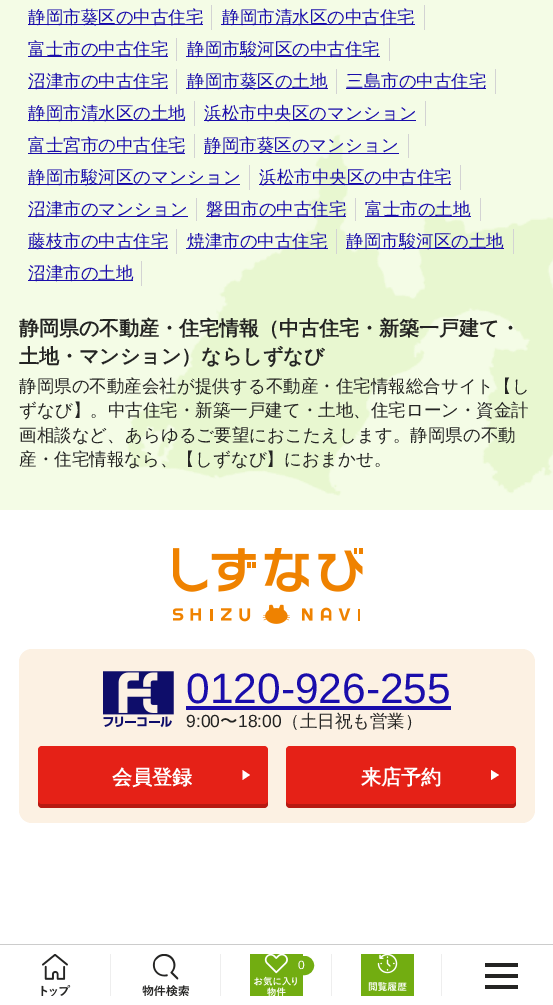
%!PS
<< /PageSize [553 1005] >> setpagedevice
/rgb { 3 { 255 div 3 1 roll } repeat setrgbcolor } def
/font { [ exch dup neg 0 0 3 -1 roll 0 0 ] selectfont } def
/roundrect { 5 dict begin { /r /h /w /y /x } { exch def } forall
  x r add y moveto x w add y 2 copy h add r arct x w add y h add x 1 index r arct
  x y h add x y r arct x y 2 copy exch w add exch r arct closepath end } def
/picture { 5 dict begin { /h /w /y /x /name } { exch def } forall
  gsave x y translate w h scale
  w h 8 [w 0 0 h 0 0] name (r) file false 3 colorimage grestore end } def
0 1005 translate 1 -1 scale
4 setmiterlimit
255 255 255 rgb
0 0 553 1005 rectfill
[
  [0 0 553 510 244 252 230]
  [211 5 1 25 211 211 211]
  [28 24 175 1 26 13 171]
  [424 5 1 25 211 211 211]
  [221 24 194 1 26 13 171]
  [176 38 1 23 211 211 211]
  [28 56 140 1 26 13 171]
  [389 38 1 23 211 211 211]
  [186 56 194 1 26 13 171]
  [176 69 1 25 211 211 211]
  [28 88 140 1 26 13 171]
  [336 69 1 25 211 211 211]
  [186 88 142 1 26 13 171]
  [495 69 1 25 211 211 211]
  [346 88 140 1 26 13 171]
  [194 101 1 25 211 211 211]
  [28 120 157 1 26 13 171]
  [425 101 1 25 211 211 211]
  [204 120 212 1 26 13 171]
] { aload pop rgb rectfill } forall
(img/1.rgb) 126 134 427 362 picture
[
  [194 134 1 24 211 211 211]
  [28 153 157 1 26 13 171]
  [408 134 1 24 211 211 211]
  [204 153 195 1 26 13 171]
  [249 165 1 25 211 211 211]
  [28 184 212 1 26 13 171]
  [460 165 1 25 211 211 211]
  [259 184 192 1 26 13 171]
  [196 198 1 23 211 211 211]
  [28 216 160 1 26 13 171]
  [355 198 1 23 211 211 211]
  [206 216 140 1 26 13 171]
  [480 198 1 23 211 211 211]
  [365 216 106 1 26 13 171]
  [176 229 1 25 211 211 211]
  [28 248 140 1 26 13 171]
  [336 229 1 25 211 211 211]
  [186 248 142 1 26 13 171]
  [513 229 1 25 211 211 211]
  [346 248 158 1 26 13 171]
  [141 261 1 25 211 211 211]
  [28 280 105 1 26 13 171]
] { aload pop rgb rectfill } forall
(img/2.rgb) 173 548 190 76 picture
252 241 227 rgb
19 649 516 174 13 roundrect fill
(img/3.rgb) 103 671 71 57 picture
26 13 171 rgb
186 706 265 4 rectfill
183 26 18 rgb
38 750 230 58 4 roundrect fill
229 33 23 rgb
38 746 230 58 4 roundrect fill
255 255 255 rgb
242.5 780 moveto 242.5 770 lineto 250 775 lineto closepath fill
183 26 18 rgb
286 750 230 58 4 roundrect fill
229 33 23 rgb
286 746 230 58 4 roundrect fill
255 255 255 rgb
491 780 moveto 491 770 lineto 499 775 lineto closepath fill
204 204 204 rgb
0 944 553 1 rectfill
(img/4.rgb) 41 954 30 42 picture
238 238 238 rgb
110 954 1 42 rectfill
(img/5.rgb) 142 954 47 42 picture
220 954 1 42 rectfill
(img/6.rgb) 250 954 53 42 picture
331 954 1 42 rectfill
114 173 17 rgb
288.5 956.5 25 18 9 roundrect gsave fill grestore
stroke
(img/7.rgb) 361 954 53 42 picture
[
  [441 954 1 42 238 238 238]
  [485 963 33 4 36 36 35]
  [485 974 33 4 36 36 35]
  [485 985 33 4 36 36 35]
] { aload pop rgb rectfill } forall
/WenQuanYiZenHei-Medium 17.5 font
26 13 171 rgb
[
  [(静岡市葵区の中古住宅) 28 23]
  [(静岡市清水区の中古住宅) 222 23]
  [(富士市の中古住宅) 28 55]
  [(静岡市駿河区の中古住宅) 187 55]
  [(沼津市の中古住宅) 28 87]
  [(静岡市葵区の土地) 187 87]
  [(三島市の中古住宅) 346 87]
  [(静岡市清水区の土地) 28 119]
  [(浜松市中央区のマンション) 204 119]
  [(富士宮市の中古住宅) 28 151]
  [(静岡市葵区のマンション) 204 151]
  [(静岡市駿河区のマンション) 28 183]
  [(浜松市中央区の中古住宅) 259 183]
  [(沼津市のマンション) 28 215]
  [(磐田市の中古住宅) 206 215]
  [(富士市の土地) 365 215]
  [(藤枝市の中古住宅) 28 247]
  [(焼津市の中古住宅) 187 247]
  [(静岡市駿河区の土地) 346 247]
  [(沼津市の土地) 28 279]
] { aload pop moveto show } forall
/WenQuanYiZenHei-Bold 20 font
36 36 35 rgb
19 335 moveto (静岡県の不動産・住宅情報（中古住宅・新築一戸建て・) show
19 363 moveto (土地・マンション）ならしずなび) show
/WenQuanYiZenHei-Medium 17.5 font
[
  [(静岡県の不動産会社が提供する不動産・住宅情報総合サイト【し) 19 392]
  [(ずなび】。中古住宅・新築一戸建て・土地、住宅ローン・資金計) 19 416]
  [(画相談など、あらゆるご要望におこたえします。静岡県の不動) 19 441]
  [(産・住宅情報なら、【しずなび】におまかせ。) 19 465]
] { aload pop moveto show } forall
/LiberationSans-Regular 42.5 font
26 13 171 rgb
186 703 moveto (0120-926-255) show
/LiberationSans-Regular 17.5 font
36 36 35 rgb
186 727 moveto (9:00) show
/WenQuanYiZenHei-Medium 17.5 font
220 727 moveto (〜) show
/LiberationSans-Regular 17.5 font
238 727 moveto (18:00) show
/WenQuanYiZenHei-Medium 17.5 font
282 727 moveto (（土日祝も営業）) show
/WenQuanYiZenHei-Bold 20 font
255 255 255 rgb
112 784 moveto (会員登録) show
361 784 moveto (来店予約) show
/LiberationSans-Regular 12 font
298 969 moveto (0) show
showpage
